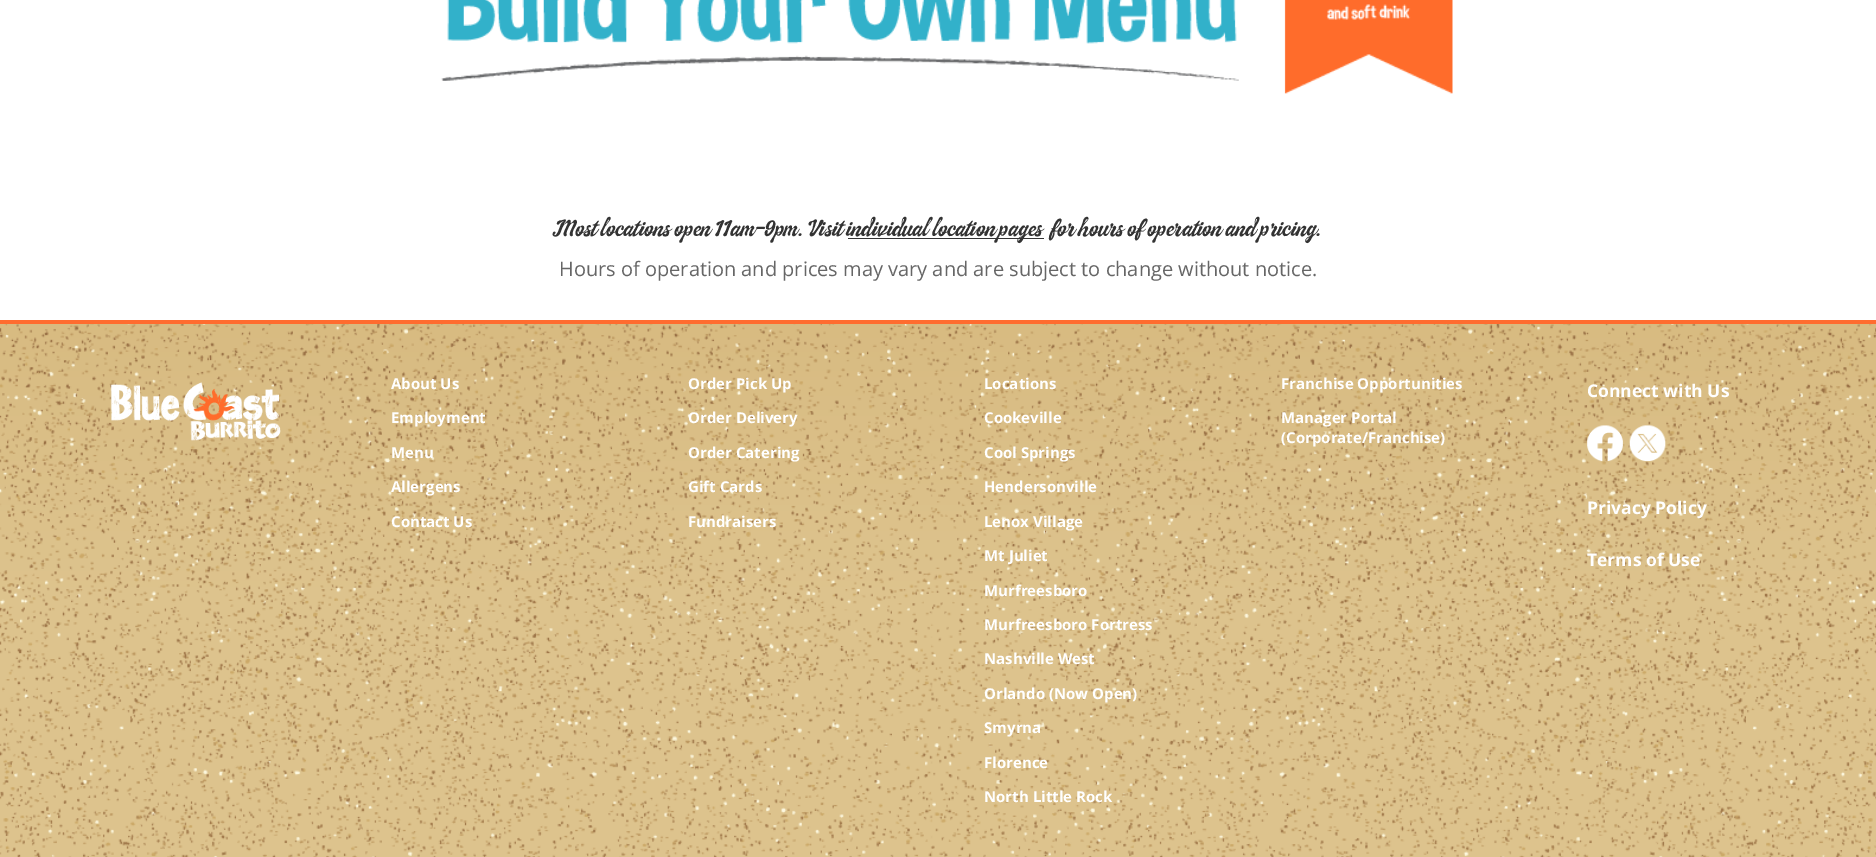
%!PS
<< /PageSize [1876 857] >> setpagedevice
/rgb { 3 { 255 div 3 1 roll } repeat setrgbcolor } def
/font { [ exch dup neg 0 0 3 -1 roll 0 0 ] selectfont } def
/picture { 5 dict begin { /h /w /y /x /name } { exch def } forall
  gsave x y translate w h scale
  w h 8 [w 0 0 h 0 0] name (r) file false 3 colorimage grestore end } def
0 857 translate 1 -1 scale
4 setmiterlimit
255 255 255 rgb
0 0 1876 857 rectfill
(img/1.rgb) 441 0 1012 94 picture
51 51 51 rgb
848 238 196 1 rectfill
(img/2.rgb) 0 324 1876 533 picture
255 108 47 rgb
0 320 1876 4 rectfill
(img/3.rgb) 110 382 171 59 picture
(img/4.rgb) 1587 425 36 37 picture
(img/5.rgb) 1629 425 37 37 picture
/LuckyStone-Regular 22.5 font
51 51 51 rgb
[
  [(Most locations open 11am-9pm. Visit) 554 236]
  [(individual location pages) 847 236]
  [(for hours of operation and pricing.) 1051 236]
] { aload pop moveto show } forall
/OpenSans-Regular 20 font
102 102 102 rgb
559 276 moveto (Hours of operation and prices may vary and are subject to change without notice.) show
/OpenSans-Bold 15 font
255 255 255 rgb
[
  [(About Us) 391 389]
  [(Employment) 391 423]
  [(Menu) 391 458]
  [(Allergens) 391 492]
  [(Contact Us) 391 527]
  [(Order Pick Up) 688 389]
  [(Order Delivery) 688 423]
  [(Order Catering) 688 458]
  [(Gift Cards) 688 492]
  [(Fundraisers) 688 527]
  [(Locations) 984 389]
  [(Cookeville) 984 423]
  [(Cool Springs) 984 458]
  [(Hendersonville) 984 492]
  [(Lenox Village) 984 527]
  [(Mt Juliet) 984 561]
  [(Murfreesboro) 984 596]
  [(Murfreesboro Fortress) 984 630]
  [(Nashville West) 984 664]
  [(Orlando \(Now Open\)) 984 699]
  [(Smyrna) 984 733]
  [(Florence) 984 768]
  [(North Little Rock) 984 802]
  [(Franchise Opportunities) 1281 389]
  [(Manager Portal) 1281 423]
  [(\(Corporate/Franchise\)) 1281 443]
] { aload pop moveto show } forall
/OpenSans-Bold 17.5 font
[
  [(Connect with Us) 1587 397]
  [(Privacy Policy) 1587 514]
  [(Terms of Use) 1587 566]
] { aload pop moveto show } forall
showpage
